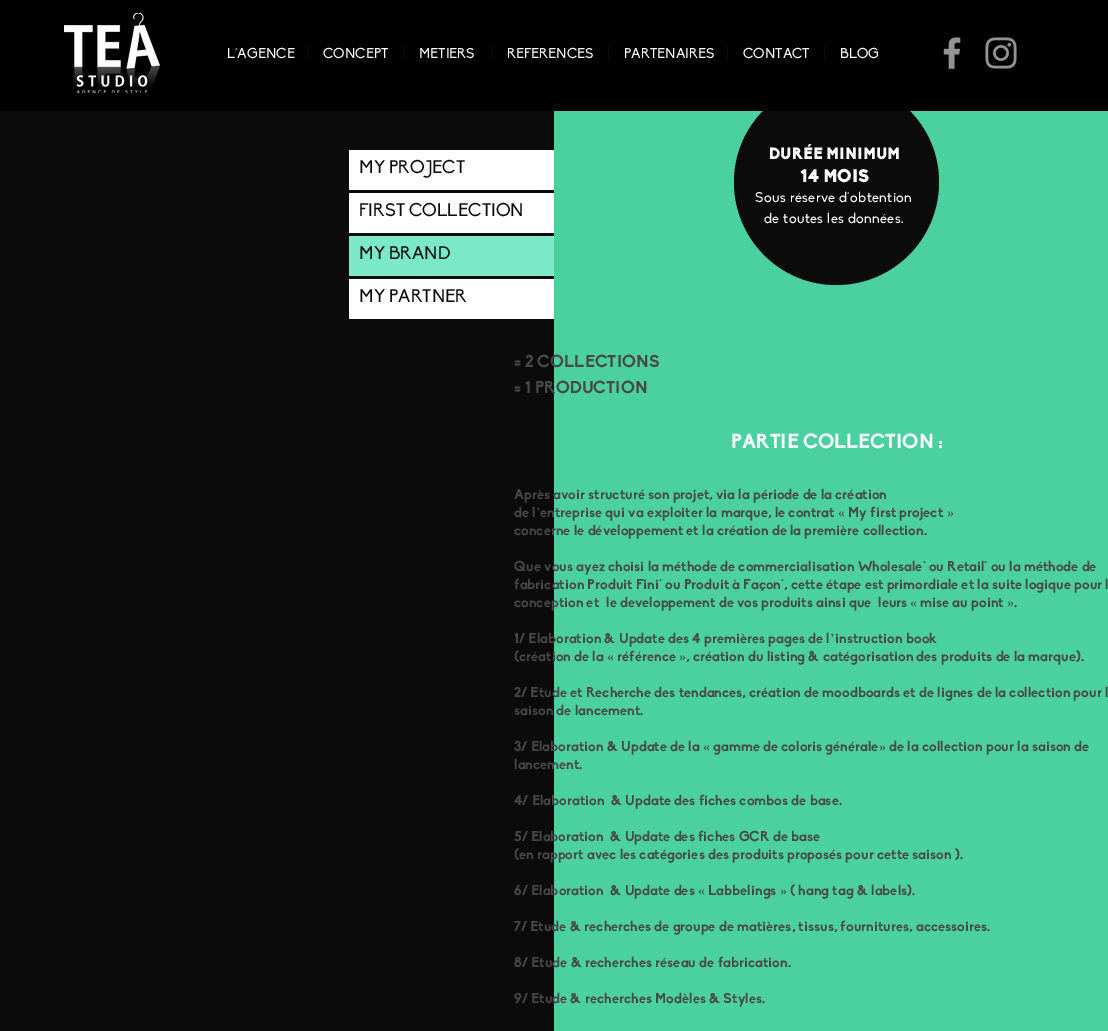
%!PS
<< /PageSize [1108 1031] >> setpagedevice
/rgb { 3 { 255 div 3 1 roll } repeat setrgbcolor } def
/font { [ exch dup neg 0 0 3 -1 roll 0 0 ] selectfont } def
/picture { 5 dict begin { /h /w /y /x /name } { exch def } forall
  gsave x y translate w h scale
  w h 8 [w 0 0 h 0 0] name (r) file false 3 colorimage grestore end } def
0 1031 translate 1 -1 scale
4 setmiterlimit
11 11 11 rgb
0 0 1108 1031 rectfill
75 209 160 rgb
554 111 554 920 rectfill
11 11 11 rgb
939 182 moveto 939 239 893 285 836 285 curveto 780 285 734 239 734 182 curveto 734 126 780 80 836 80 curveto 893 80 939 126 939 182 curveto closepath fill
0 0 0 rgb
0 0 1108 111 rectfill
(img/1.rgb) 64 13 96 80 picture
[
  [307 45 1 15 11 11 11]
  [403 45 1 15 11 11 11]
  [491 45 1 15 11 11 11]
  [608 45 1 15 11 11 11]
  [727 45 1 15 11 11 11]
  [824 45 1 15 11 11 11]
] { aload pop rgb rectfill } forall
(img/2.rgb) 943 37 18 32 picture
(img/3.rgb) 985 37 32 32 picture
[
  [349 150 205 40 255 255 255]
  [349 193 205 40 255 255 255]
  [349 236 205 40 123 232 199]
  [349 279 205 40 255 255 255]
] { aload pop rgb rectfill } forall
/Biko-Regular 14 font
[
  [(L'AGENCE) 227 58]
  [(CONCEPT) 323 58]
  [(METIERS) 419 58]
  [(REFERENCES) 507 58]
  [(PARTENAIRES) 624 58]
  [(CONTACT) 743 58]
  [(BLOG) 840 58]
] { aload pop moveto show } forall
/Biko-Regular 18 font
11 11 11 rgb
[
  [(MY PROJECT) 359 173]
  [(FIRST COLLECTION) 359 216]
  [(MY BRAND) 359 259]
  [(MY PARTNER) 359 302]
] { aload pop moveto show } forall
/Biko-Black 16 font
255 255 255 rgb
769 159 moveto (DURÉE MINIMUM) show
/Biko-Black 18 font
800 182 moveto (14 MOIS) show
/Biko-Regular 14 font
755 202 moveto 0.4 0 (Sous réserve d'obtention) ashow
764 223 moveto 0.4 0 (de toutes les données.) ashow
/Biko-Bold 17 font
72 72 72 rgb
514 367 moveto (= 2 COLLECTIONS) show
514 393 moveto (= 1 PRODUCTION) show
/Biko-Bold 20 font
255 255 255 rgb
731 448 moveto (PARTIE COLLECTION :) show
/Biko-Bold 14 font
72 72 72 rgb
514 499 moveto (Après avoir structuré son projet, via la période de la création) show
514 517 moveto (de l) show
/LiberationSerif-Regular 14 font
536 517 moveto (’) show
/Biko-Bold 14 font
540 517 moveto (entreprise qui va exploiter la marque, le contrat) show
848 517 moveto (My first project) show
/LiberationSerif-Regular 14 font
838 517 moveto («) show
947 517 moveto (») show
/Biko-Bold 14 font
[
  [(concerne le développement et la création de la première collection.) 514 535]
  [(Que vous ayez choisi la méthode de commercialisation Wholesale* ou Retail* ou la méthode de) 514 571]
  [(fabrication Produit Fini* ou Produit à Façon*, cette étape est primordiale et la suite logique pour l) 514 589]
  [(conception et) 514 607]
  [(le developpement de vos produits ainsi que) 606 607]
  [(leurs) 878 607]
] { aload pop moveto show } forall
/LiberationSerif-Regular 14 font
910 607 moveto («) show
/Biko-Bold 14 font
920 607 moveto (mise au point) show
/LiberationSerif-Regular 14 font
1007 607 moveto (») show
/Biko-Bold 14 font
1014 607 moveto (.) show
514 643 moveto (1/ Elaboration & Update des 4 premières pages de l) show
/LiberationSerif-Regular 14 font
830 643 moveto (’) show
/Biko-Bold 14 font
835 643 moveto (instruction book) show
514 661 moveto (\(création de la) show
/LiberationSerif-Regular 14 font
607 661 moveto («) show
/Biko-Bold 14 font
617 661 moveto (référence) show
/LiberationSerif-Regular 14 font
679 661 moveto (») show
/Biko-Bold 14 font
[
  [(, création du listing & catégorisation des produits de la marque\).) 686 661]
  [(2/ Etude et Recherche des tendances, création de moodboards et de lignes de la collection pour l) 514 697]
  [(saison de lancement.) 514 715]
  [(3/ Elaboration & Update de la) 514 751]
] { aload pop moveto show } forall
/LiberationSerif-Regular 14 font
703 751 moveto («) show
/Biko-Bold 14 font
713 751 moveto (gamme de coloris générale) show
/LiberationSerif-Regular 14 font
879 751 moveto (») show
/Biko-Bold 14 font
[
  [(de la collection pour la saison de) 889 751]
  [(lancement.) 514 769]
  [(4/ Elaboration  & Update des fiches combos de base.) 514 805]
  [(5/ Elaboration  & Update des fiches GCR de base) 514 841]
  [(\(en rapport avec les catégories des produits proposés pour cette saison \).) 514 859]
  [(6/ Elaboration) 514 895]
  [(& Update des) 610 895]
] { aload pop moveto show } forall
/LiberationSerif-Regular 14 font
698 895 moveto («) show
/Biko-Bold 14 font
708 895 moveto (Labbelings) show
/LiberationSerif-Regular 14 font
780 895 moveto (») show
/Biko-Bold 14 font
[
  [(\( hang tag & labels\).) 790 895]
  [(7/ Etude & recherches de groupe de matières, tissus, fournitures, accessoires.) 514 931]
  [(8/ Etude & recherches réseau de fabrication.) 514 967]
  [(9/ Etude & recherches Modèles & Styles.) 514 1003]
] { aload pop moveto show } forall
showpage
